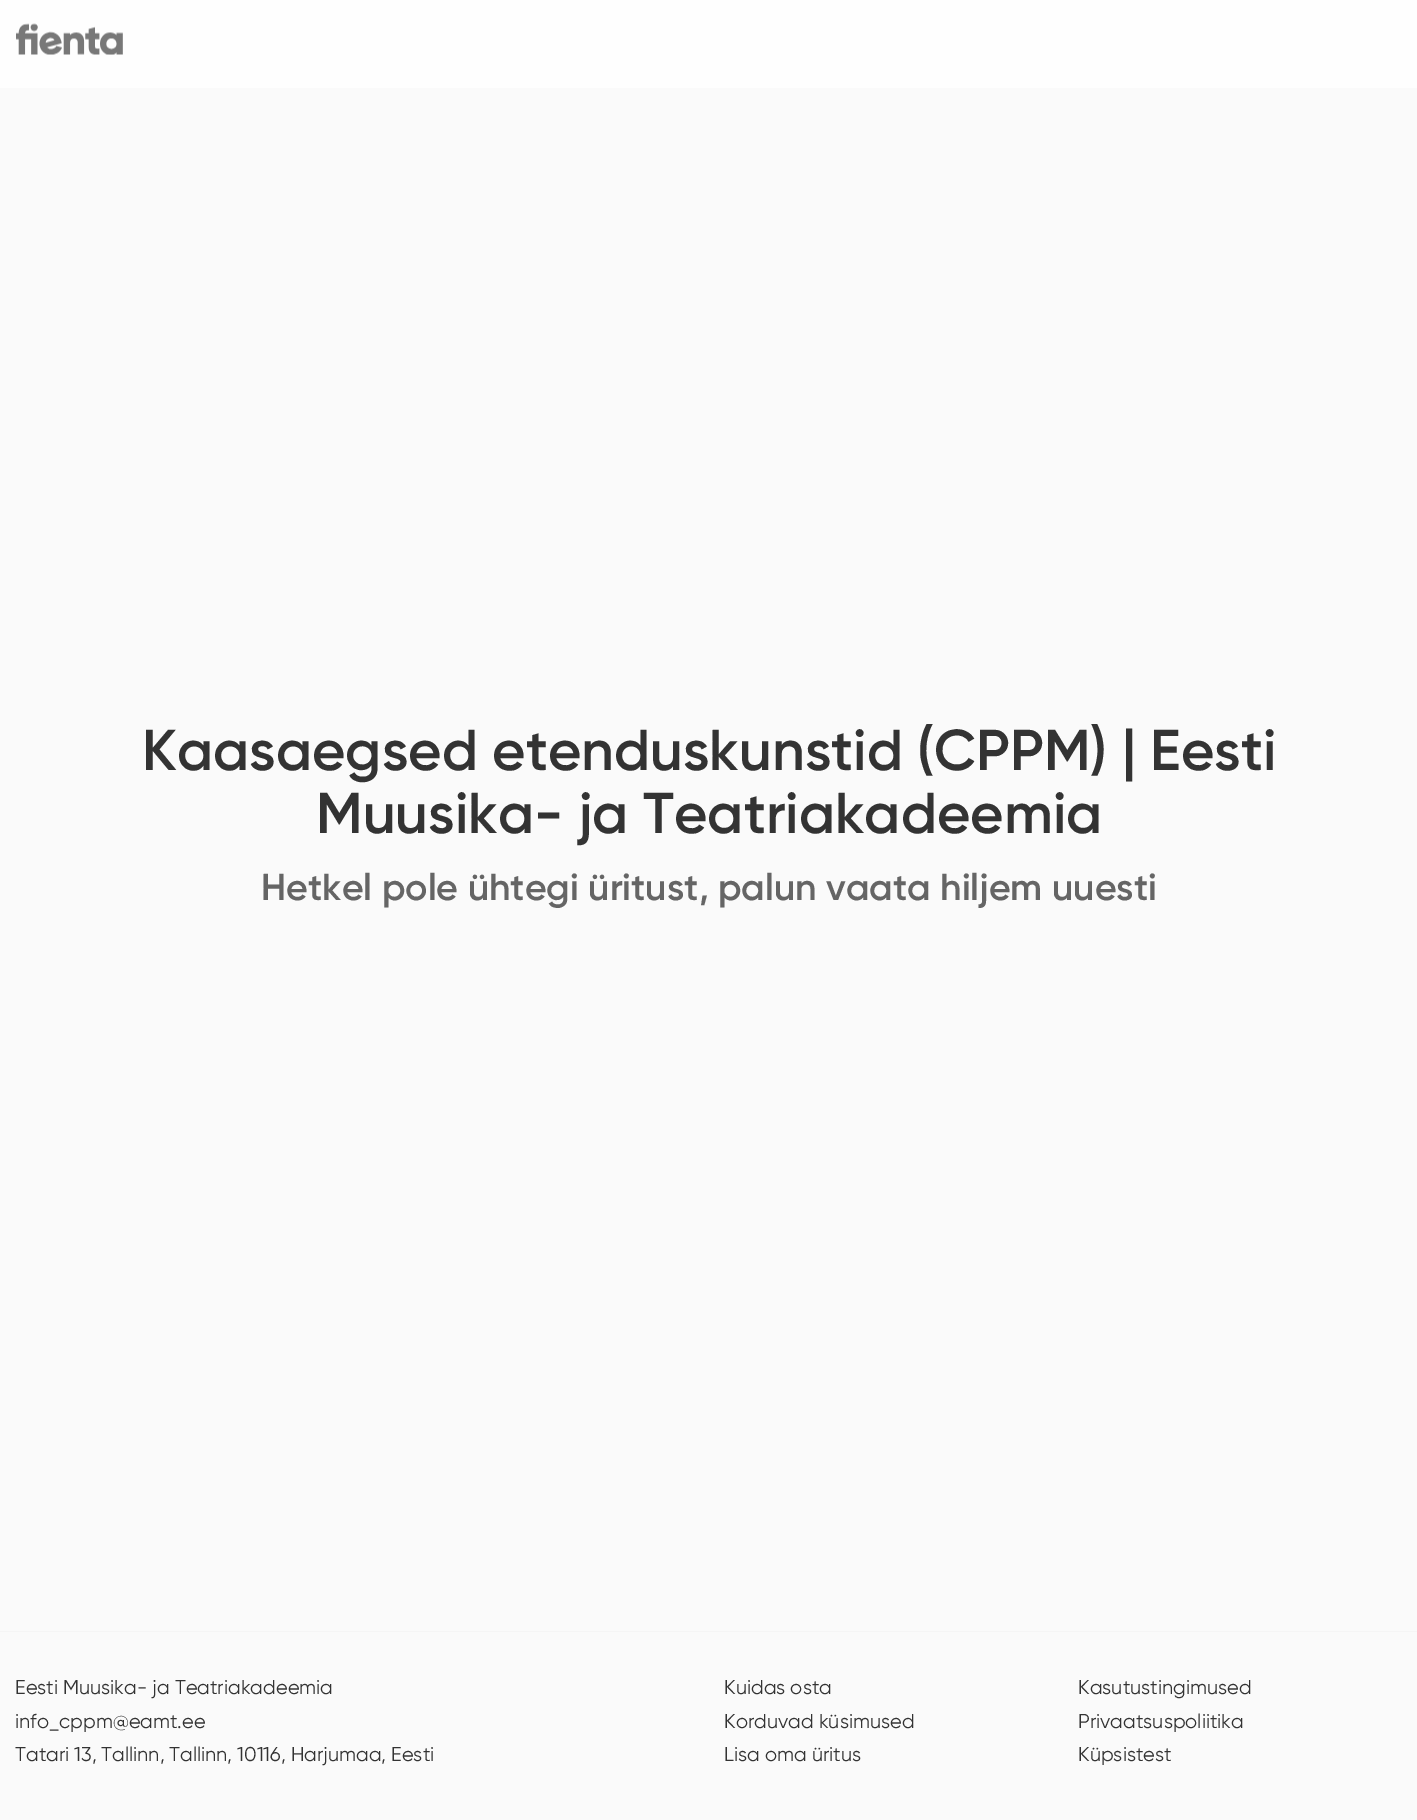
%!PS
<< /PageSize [1417 1820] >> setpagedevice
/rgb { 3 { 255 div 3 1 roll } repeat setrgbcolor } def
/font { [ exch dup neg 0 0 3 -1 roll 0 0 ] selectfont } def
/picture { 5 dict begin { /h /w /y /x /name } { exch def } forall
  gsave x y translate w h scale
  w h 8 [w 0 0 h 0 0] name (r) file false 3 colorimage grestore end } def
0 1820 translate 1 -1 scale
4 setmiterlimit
250 250 250 rgb
0 0 1417 1820 rectfill
254 254 254 rgb
0 0 1417 88 rectfill
(img/1.rgb) 16 23 107 32 picture
245 245 245 rgb
0 1631 1417 1 rectfill
/Gilroy-SemiBold 57.5 font
51 51 51 rgb
142 770 moveto (Kaasaegsed etenduskunstid \(CPPM\) | Eesti) show
316 833 moveto (Muusika- ja Teatriakadeemia) show
/Gilroy-SemiBold 37.5 font
101 101 101 rgb
261 900 moveto (Hetkel pole ühtegi üritust, palun vaata hiljem uuesti) show
/Gilroy-Regular 20 font
51 51 51 rgb
[
  [(Eesti Muusika- ja Teatriakadeemia) 15 1694]
  [(info_cppm@eamt.ee) 15 1728]
  [(Tatari 13, Tallinn, Tallinn, 10116, Harjumaa, Eesti) 15 1761]
  [(Kuidas osta) 724 1694]
  [(Korduvad küsimused) 724 1728]
  [(Lisa oma üritus) 724 1761]
  [(Kasutustingimused) 1078 1694]
  [(Privaatsuspoliitika) 1078 1728]
  [(Küpsistest) 1078 1761]
] { aload pop moveto show } forall
showpage
